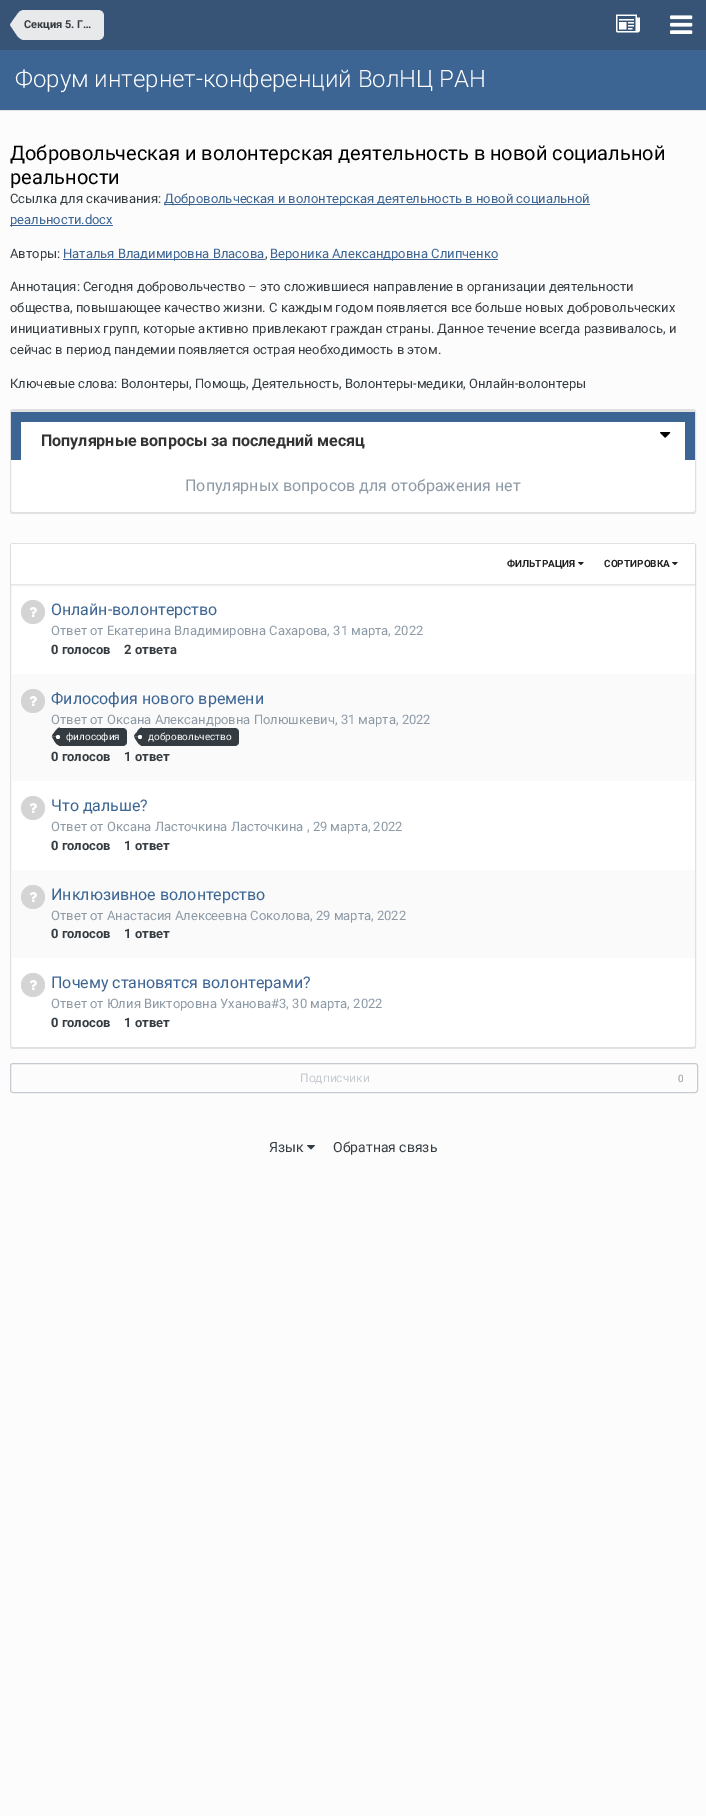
%!PS
<< /PageSize [706 1816] /PageUsesTransparency true >> setpagedevice
/rgb { 3 { 255 div 3 1 roll } repeat setrgbcolor } def
/font { [ exch dup neg 0 0 3 -1 roll 0 0 ] selectfont } def
/alpha { dup .setfillconstantalpha .setstrokeconstantalpha } def
/circle { newpath 0 360 arc closepath } def
/roundrect { 5 dict begin { /r /h /w /y /x } { exch def } forall
  x r add y moveto x w add y 2 copy h add r arct x w add y h add x 1 index r arct
  x y h add x y r arct x y 2 copy exch w add exch r arct closepath end } def
/shadow { 12 dict begin { /a /b /q /h /w /y /x } { exch def } forall gsave /was 0 def
  9 -2 -9 { dup b mul 4 div /e exch def 1 sub .425 mul 2.718 exch exp 1 add a .99 .min exch div /now exch def
    1 1 now sub 1 was sub div sub alpha /was now def
    w h .min e 2 mul add 0 gt { x e sub y e sub w e 2 mul add h e 2 mul add
      q e add b .6 mul add w h .min 2 div e add .min 0 .max roundrect fill } if } for grestore end } def
/picture { 5 dict begin { /h /w /y /x /name } { exch def } forall
  gsave x y translate w h scale
  w h 8 [w 0 0 h 0 0] name (r) file false 3 colorimage grestore end } def
0 .pushpdf14devicefilter
0 1816 translate 1 -1 scale
4 setmiterlimit
252 252 252 rgb
0 0 706 1816 rectfill
227 227 227 rgb
0 110 706 1 rectfill
55 84 118 rgb
0 0 706 50 rectfill
232 233 235 rgb
24 10 moveto 98 10 lineto 101.5 10 104 12.5 104 16 curveto 104 34 lineto 104 37.5 101.5 40 98 40 curveto 24 40 lineto closepath fill
24 25 moveto 24 40 lineto 22 40 19.5 38.5 17 35.5 curveto 10 25 lineto closepath 24 25 moveto 10 25 lineto 10 24 18.5 12.5 19 12 curveto 20.5 11 22 10 24 10 curveto closepath fill
(img/1.rgb) 616 14 24 19 picture
(img/2.rgb) 670 15 23 19 picture
[
  [0 50 706 60 61 101 148]
  [164 204 426 1 61 101 148]
  [10 225 103 1 61 101 148]
  [63 259 202 1 61 101 148]
  [270 259 228 1 61 101 148]
] { aload pop rgb rectfill } forall
227 227 227 rgb
10 510 moveto 10 511 lineto 10 513 11 514 13 514 curveto 693 514 lineto 695 514 696 513 696 511 curveto 696 510 lineto 696 512 695 513 693 513 curveto 13 513 lineto 11 513 10 512 10 510 curveto closepath fill
255 255 255 rgb
10.5 409.5 685 103 2.5 roundrect gsave fill grestore
224 224 224 rgb
stroke
[
  [11 412 684 48 61 101 148]
  [11 410 684 2 224 224 224]
  [21 422 664 38 255 255 255]
] { aload pop rgb rectfill } forall
(img/3.rgb) 660 432 11 6 picture
227 227 227 rgb
10 1045 moveto 10 1046 lineto 10 1048 11 1049 13 1049 curveto 693 1049 lineto 695 1049 696 1048 696 1046 curveto 696 1045 lineto 696 1047 695 1048 693 1048 curveto 13 1048 lineto 11 1048 10 1047 10 1045 curveto closepath fill
255 255 255 rgb
10.5 543.5 685 504 2.5 roundrect gsave fill grestore
224 224 224 rgb
stroke
0 0 0 rgb
11 545 684 41 0 0.5 0.05 shadow
255 255 255 rgb
11 544 684 40 rectfill
230 230 230 rgb
11 584 684 1 rectfill
(img/4.rgb) 578 562 6 4 picture
(img/4.rgb) 672 562 6 4 picture
212 212 212 rgb
33 612 12 circle fill
(img/5.rgb) 29 607 8 10 picture
250 250 250 rgb
11 674 684 107 rectfill
212 212 212 rgb
33 701 12 circle fill
(img/5.rgb) 29 696 8 10 picture
53 60 65 rgb
59 728 moveto 123 728 lineto 125 728 127 730 127 732 curveto 127 742 lineto 127 744 125 746 123 746 curveto 59 746 lineto closepath fill
52 736.5 moveto 60 736.5 lineto 60 745.5 lineto 56 745.5 53.5 739.5 52 736.5 curveto closepath fill
60 727.5 moveto 60 736.5 lineto 52 736.5 lineto 51.5 735.5 56.5 729.5 57.5 728.5 curveto 58 728 59 727.5 60 727.5 curveto closepath fill
255 255 255 rgb
58 737 2 circle fill
53 60 65 rgb
141 728 moveto 235 728 lineto 237 728 239 730 239 732 curveto 239 742 lineto 239 744 237 746 235 746 curveto 141 746 lineto closepath fill
136 740 moveto 134 736.5 lineto 142 736.5 lineto 142 745.5 lineto 139 745.5 137.5 742 136 740 curveto closepath 142 736.5 moveto 142 736.5 lineto closepath eofill
137 732 moveto 138 730 139.5 728 142 727.5 curveto 142 736.5 lineto 134 736.5 lineto 134 735 136 733 137 732 curveto closepath 142 736.5 moveto 142 736.5 lineto closepath eofill
255 255 255 rgb
140 737 2 circle fill
212 212 212 rgb
33 808 12 circle fill
(img/5.rgb) 29 803 8 10 picture
250 250 250 rgb
11 870 684 88 rectfill
212 212 212 rgb
33 897 12 circle fill
(img/5.rgb) 29 892 8 10 picture
33 985 12 circle fill
(img/5.rgb) 29 980 8 10 picture
197 203 209 rgb
10.5 1063.5 687 29 2.5 roundrect stroke
(img/6.rgb) 307 1145 8 5 picture
/Roboto-Bold 11 font
53 60 65 rgb
24 28 moveto (Секция 5. Г…) show
/Roboto-Light 24 font
255 255 255 rgb
15 87 moveto (Форум интернет-конференций ВолНЦ РАН) show
/Roboto-Regular 20 font
0 0 0 rgb
10 160 moveto (Добровольческая и волонтерская деятельность в новой социальной) show
10 184 moveto (реальности) show
/Roboto-Regular 13 font
53 60 65 rgb
10 203 moveto (Ссылка для скачивания:) show
61 101 148 rgb
164 203 moveto (Добровольческая и волонтерская деятельность в новой социальной) show
10 224 moveto (реальности.docx) show
53 60 65 rgb
10 258 moveto (Авторы:) show
61 101 148 rgb
63 258 moveto (Наталья Владимировна Власова) show
53 60 65 rgb
265 258 moveto (,) show
61 101 148 rgb
270 258 moveto (Вероника Александровна Слипченко) show
53 60 65 rgb
[
  [(Аннотация: Сегодня добровольчество – это сложившиеся направление в организации деятельности) 10 291]
  [(общества, повышающее качество жизни. С каждым годом появляется все больше новых добровольческих) 10 312]
  [(инициативных групп, которые активно привлекают граждан страны. Данное течение всегда развивалось, и) 10 333]
  [(сейчас в период пандемии появляется острая необходимость в этом.) 10 354]
  [(Ключевые слова: Волонтеры, Помощь, Деятельность, Волонтеры-медики, Онлайн-волонтеры) 10 388]
] { aload pop moveto show } forall
/Roboto-Bold 16 font
51 51 51 rgb
41 446 moveto (Популярные вопросы за последний месяц) show
/Roboto-Regular 16 font
141 154 166 rgb
185 491 moveto (Популярных вопросов для отображения нет) show
/Roboto-Bold 10 font
34 34 34 rgb
507 567 moveto (ФИЛЬТРАЦИЯ) show
604 567 moveto (СОРТИРОВКА) show
/Roboto-Regular 16 font
61 101 148 rgb
51 615 moveto (Онлайн-волонтерство) show
/Roboto-Regular 13 font
141 154 166 rgb
51 635 moveto (Ответ от Екатерина Владимировна Сахарова, 31 марта, 2022) show
/Roboto-Bold 13 font
53 60 65 rgb
51 654 moveto (0 голосов) show
124 654 moveto (2 ответа) show
/Roboto-Regular 16 font
61 101 148 rgb
51 704 moveto (Философия нового времени) show
/Roboto-Regular 13 font
141 154 166 rgb
51 724 moveto (Ответ от Оксана Александровна Полюшкевич, 31 марта, 2022) show
/Roboto-Regular 10 font
255 255 255 rgb
66 740 moveto (философия) show
148 740 moveto (добровольчество) show
/Roboto-Bold 13 font
53 60 65 rgb
51 761 moveto (0 голосов) show
124 761 moveto (1 ответ) show
/Roboto-Regular 16 font
61 101 148 rgb
51 811 moveto (Что дальше?) show
/Roboto-Regular 13 font
141 154 166 rgb
51 831 moveto (Ответ от Оксана Ласточкина Ласточкина , 29 марта, 2022) show
/Roboto-Bold 13 font
53 60 65 rgb
51 850 moveto (0 голосов) show
124 850 moveto (1 ответ) show
/Roboto-Regular 16 font
61 101 148 rgb
51 900 moveto (Инклюзивное волонтерство) show
/Roboto-Regular 13 font
141 154 166 rgb
51 920 moveto (Ответ от Анастасия Алексеевна Соколова, 29 марта, 2022) show
/Roboto-Bold 13 font
53 60 65 rgb
51 938 moveto (0 голосов) show
124 938 moveto (1 ответ) show
/Roboto-Regular 16 font
61 101 148 rgb
51 988 moveto (Почему становятся волонтерами?) show
/Roboto-Regular 13 font
141 154 166 rgb
51 1008 moveto (Ответ от Юлия Викторовна Уханова#3, 30 марта, 2022) show
/Roboto-Bold 13 font
53 60 65 rgb
51 1027 moveto (0 голосов) show
124 1027 moveto (1 ответ) show
/Roboto-Regular 12 font
197 203 209 rgb
300 1082 moveto (Подписчики) show
/Roboto-Regular 10 font
152 152 152 rgb
678 1082 moveto (0) show
/Roboto-Regular 14 font
53 60 65 rgb
269 1152 moveto (Язык) show
333 1152 moveto (Обратная связь) show
.poppdf14devicefilter showpage
